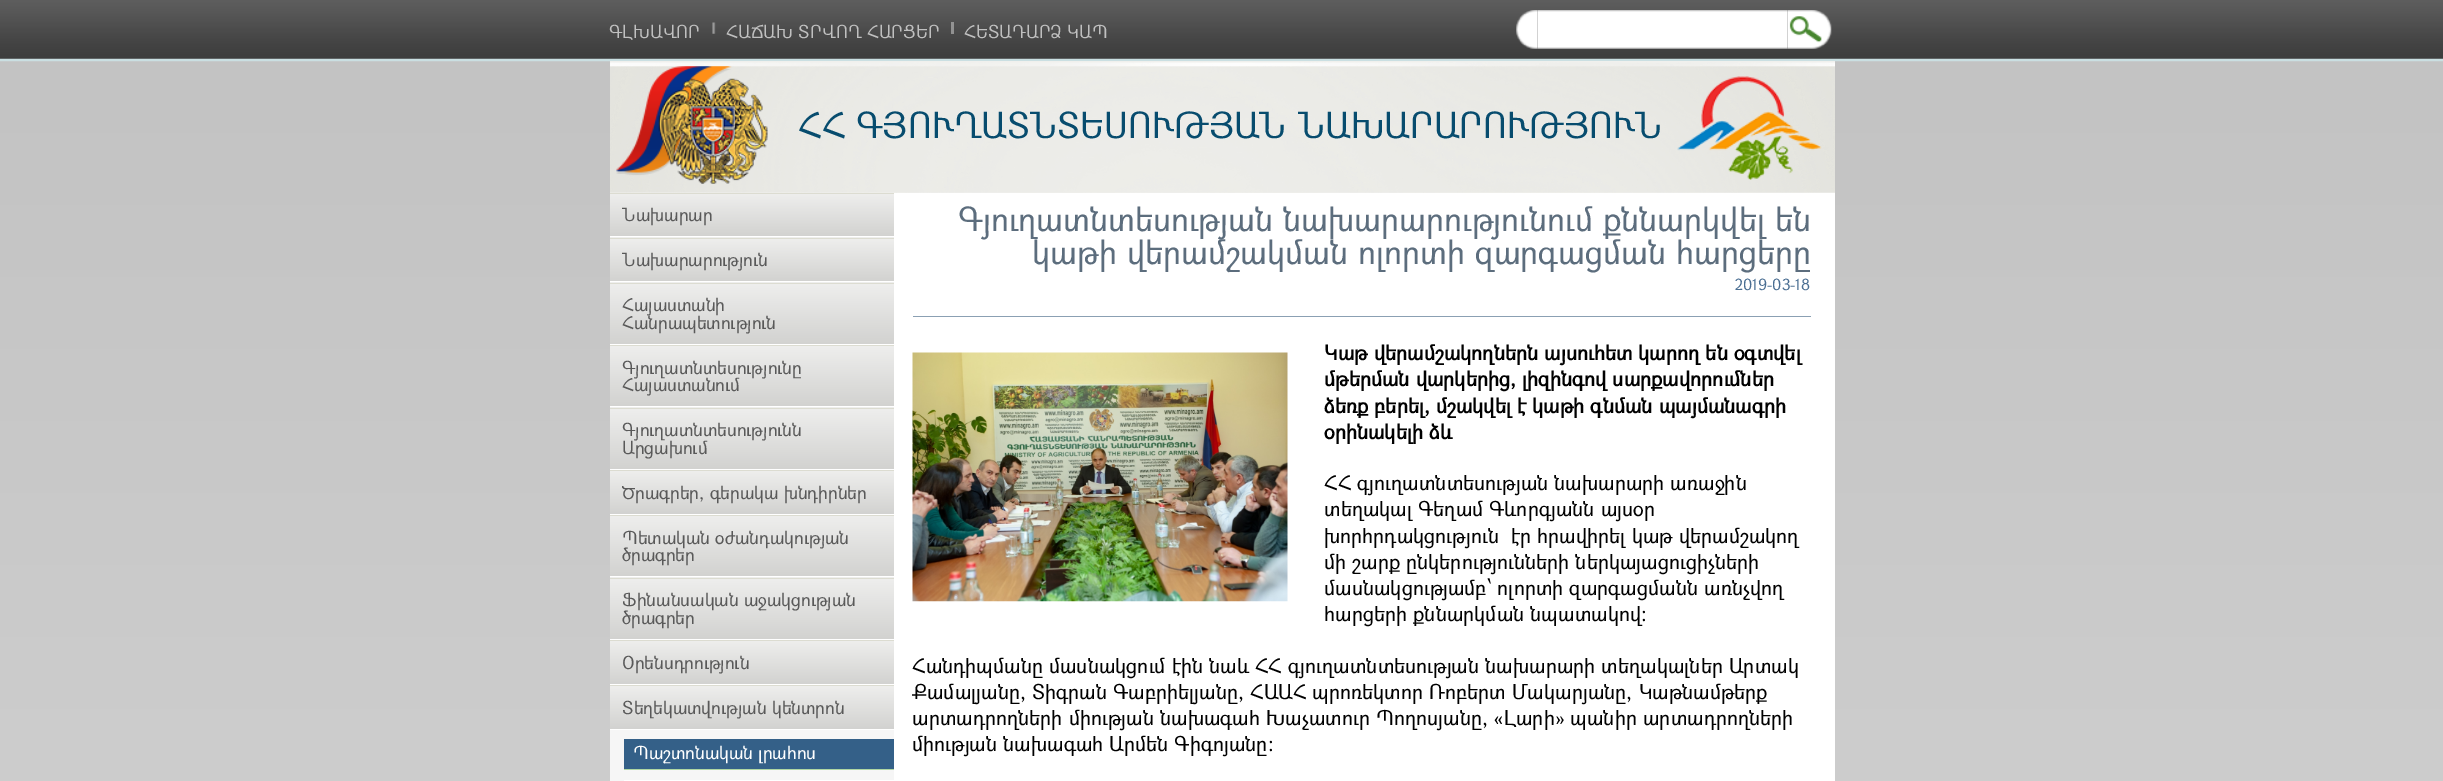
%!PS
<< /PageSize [2443 781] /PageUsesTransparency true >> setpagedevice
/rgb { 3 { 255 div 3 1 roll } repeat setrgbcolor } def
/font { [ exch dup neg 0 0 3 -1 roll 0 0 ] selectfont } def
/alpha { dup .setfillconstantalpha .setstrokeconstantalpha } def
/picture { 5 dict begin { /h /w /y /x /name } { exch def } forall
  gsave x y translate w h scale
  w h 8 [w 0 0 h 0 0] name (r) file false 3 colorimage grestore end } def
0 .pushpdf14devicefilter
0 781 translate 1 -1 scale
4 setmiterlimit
255 255 255 rgb
0 0 2443 781 rectfill
gsave 0 61 moveto 2443 61 lineto 2443 781 lineto 0 781 lineto closepath clip newpath
<< /ShadingType 2 /ColorSpace /DeviceRGB /Coords [1222 0 1222 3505] /Extend [true true] /Function << /FunctionType 2 /Domain [0 1] /C0 [0.761 0.761 0.761] /C1 [0.957 0.957 0.957] /N 1 >> >> shfill grestore
(img/1.rgb) 0 0 2443 62 picture
(img/2.rgb) 712 22 4 12 picture
0.6 alpha
192 192 192 rgb
951 22 3 12 rectfill
1 alpha
(img/3.rgb) 1516 10 22 39 picture
(img/4.rgb) 1537 10 251 39 picture
(img/5.rgb) 1787 10 45 39 picture
240 240 237 rgb
610 61 1225 132 rectfill
(img/6.rgb) 610 62 1225 131 picture
(img/7.rgb) 616 66 152 118 picture
(img/8.rgb) 1677 76 145 104 picture
[
  [894 193 941 588 255 255 255]
  [610 730 284 51 246 246 246]
  [610 237 284 1 238 238 237]
] { aload pop rgb rectfill } forall
gsave 610 194 moveto 894 194 lineto 894 236 lineto 610 236 lineto closepath clip newpath
<< /ShadingType 2 /ColorSpace /DeviceRGB /Coords [752 194 752 236] /Extend [true true] /Function << /FunctionType 2 /Domain [0 1] /C0 [0.933 0.933 0.929] /C1 [0.824 0.824 0.816] /N 1 >> >> shfill grestore
[
  [610 193 284 1 220 220 209]
  [610 236 284 1 255 255 255]
  [610 282 284 1 238 238 237]
] { aload pop rgb rectfill } forall
gsave 610 239 moveto 894 239 lineto 894 281 lineto 610 281 lineto closepath clip newpath
<< /ShadingType 2 /ColorSpace /DeviceRGB /Coords [752 239 752 281] /Extend [true true] /Function << /FunctionType 2 /Domain [0 1] /C0 [0.933 0.933 0.929] /C1 [0.824 0.824 0.816] /N 1 >> >> shfill grestore
220 220 209 rgb
610 238 284 1 rectfill
255 255 255 rgb
610 281 284 1 rectfill
gsave 610 284 moveto 894 284 lineto 894 344 lineto 610 344 lineto closepath clip newpath
<< /ShadingType 2 /ColorSpace /DeviceRGB /Coords [752 284 752 344] /Extend [true true] /Function << /FunctionType 2 /Domain [0 1] /C0 [0.933 0.933 0.929] /C1 [0.824 0.824 0.816] /N 1 >> >> shfill grestore
[
  [610 283 284 1 220 220 209]
  [610 344 284 1 255 255 255]
  [610 407 284 1 238 238 237]
] { aload pop rgb rectfill } forall
gsave 610 346 moveto 894 346 lineto 894 406 lineto 610 406 lineto closepath clip newpath
<< /ShadingType 2 /ColorSpace /DeviceRGB /Coords [752 346 752 406] /Extend [true true] /Function << /FunctionType 2 /Domain [0 1] /C0 [0.933 0.933 0.929] /C1 [0.824 0.824 0.816] /N 1 >> >> shfill grestore
220 220 209 rgb
610 345 284 1 rectfill
255 255 255 rgb
610 406 284 1 rectfill
gsave 610 409 moveto 894 409 lineto 894 469 lineto 610 469 lineto closepath clip newpath
<< /ShadingType 2 /ColorSpace /DeviceRGB /Coords [752 409 752 469] /Extend [true true] /Function << /FunctionType 2 /Domain [0 1] /C0 [0.933 0.933 0.929] /C1 [0.824 0.824 0.816] /N 1 >> >> shfill grestore
220 220 209 rgb
610 408 284 1 rectfill
255 255 255 rgb
610 469 284 1 rectfill
gsave 610 471 moveto 894 471 lineto 894 514 lineto 610 514 lineto closepath clip newpath
<< /ShadingType 2 /ColorSpace /DeviceRGB /Coords [752 471 752 514] /Extend [true true] /Function << /FunctionType 2 /Domain [0 1] /C0 [0.933 0.933 0.929] /C1 [0.824 0.824 0.816] /N 1 >> >> shfill grestore
[
  [610 470 284 1 220 220 209]
  [610 514 284 1 255 255 255]
  [610 577 284 1 238 238 237]
] { aload pop rgb rectfill } forall
gsave 610 516 moveto 894 516 lineto 894 576 lineto 610 576 lineto closepath clip newpath
<< /ShadingType 2 /ColorSpace /DeviceRGB /Coords [752 516 752 576] /Extend [true true] /Function << /FunctionType 2 /Domain [0 1] /C0 [0.933 0.933 0.929] /C1 [0.824 0.824 0.816] /N 1 >> >> shfill grestore
220 220 209 rgb
610 515 284 1 rectfill
255 255 255 rgb
610 576 284 1 rectfill
gsave 610 579 moveto 894 579 lineto 894 639 lineto 610 639 lineto closepath clip newpath
<< /ShadingType 2 /ColorSpace /DeviceRGB /Coords [752 579 752 639] /Extend [true true] /Function << /FunctionType 2 /Domain [0 1] /C0 [0.933 0.933 0.929] /C1 [0.824 0.824 0.816] /N 1 >> >> shfill grestore
220 220 209 rgb
610 578 284 1 rectfill
255 255 255 rgb
610 639 284 1 rectfill
gsave 610 641 moveto 894 641 lineto 894 684 lineto 610 684 lineto closepath clip newpath
<< /ShadingType 2 /ColorSpace /DeviceRGB /Coords [752 641 752 684] /Extend [true true] /Function << /FunctionType 2 /Domain [0 1] /C0 [0.933 0.933 0.929] /C1 [0.824 0.824 0.816] /N 1 >> >> shfill grestore
220 220 209 rgb
610 640 284 1 rectfill
255 255 255 rgb
610 684 284 1 rectfill
gsave 610 686 moveto 894 686 lineto 894 729 lineto 610 729 lineto closepath clip newpath
<< /ShadingType 2 /ColorSpace /DeviceRGB /Coords [752 686 752 729] /Extend [true true] /Function << /FunctionType 2 /Domain [0 1] /C0 [0.933 0.933 0.929] /C1 [0.824 0.824 0.816] /N 1 >> >> shfill grestore
[
  [610 685 284 1 220 220 209]
  [610 729 284 1 255 255 255]
  [624 739 270 30 52 96 136]
  [624 769 270 1 176 215 163]
  [624 780 270 1 255 255 255]
  [913 316 898 1 139 160 179]
] { aload pop rgb rectfill } forall
(img/9.rgb) 912 352 376 250 picture
/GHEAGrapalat-Regular 17.5 font
192 192 192 rgb
[
  [(ԳԼԽԱՎՈՐ) 609 38]
  [(ՀԱՃԱԽ ՏՐՎՈՂ ՀԱՐՑԵՐ) 726 38]
  [(ՀԵՏԱԴԱՐՁ ԿԱՊ) 964 38]
] { aload pop moveto show } forall
/GHEAGrapalat-Regular 35 font
7 76 110 rgb
798 138 moveto (ՀՀ ԳՅՈՒՂԱՏՆՏԵՍՈՒԹՅԱՆ ՆԱԽԱՐԱՐՈՒԹՅՈՒՆ) show
/GHEAGrapalat-Regular 17.5 font
89 89 89 rgb
[
  [(Նախարար) 622 221]
  [(Նախարարություն) 622 266]
  [(Հայաստանի) 622 311]
  [(Հանրապետություն) 622 329]
  [(Գյուղատնտեսությունը) 622 374]
  [(Հայաստանում) 622 391]
  [(Գյուղատնտեսությունն) 622 436]
  [(Արցախում) 622 454]
  [(Ծրագրեր, գերակա խնդիրներ) 622 499]
  [(Պետական օժանդակության) 622 544]
  [(ծրագրեր) 622 561]
  [(Ֆինանսական աջակցության) 622 606]
  [(ծրագրեր) 622 624]
  [(Օրենսդրություն) 622 669]
  [(Տեղեկատվության կենտրոն) 622 714]
] { aload pop moveto show } forall
255 255 255 rgb
633 759 moveto (Պաշտոնական լրահոս) show
/GHEAGrapalat-Regular 32.5 font
92 109 125 rgb
958 231 moveto (Գյուղատնտեսության նախարարությունում քննարկվել են) show
1032 264 moveto (կաթի վերամշակման ոլորտի զարգացման հարցերը) show
/GHEAGrapalat-Regular 15 font
74 110 146 rgb
1735 290 moveto (2019-03-18) show
/GHEAGrapalat-Bold 20 font
0 0 0 rgb
[
  [(Կաթ վերամշակողներն այսուհետ կարող են օգտվել) 1324 360]
  [(մթերման վարկերից, լիզինգով սարքավորումներ) 1324 386]
  [(ձեռք բերել, մշակվել է կաթի գնման պայմանագրի) 1324 413]
  [(օրինակելի ձև) 1324 439]
] { aload pop moveto show } forall
/GHEAGrapalat-Regular 20 font
[
  [(ՀՀ գյուղատնտեսության նախարարի առաջին) 1324 490]
  [(տեղակալ Գեղամ Գևորգյանն այսօր) 1324 516]
  [(խորհրդակցություն  էր հրավիրել կաթ վերամշակող) 1324 543]
  [(մի շարք ընկերությունների ներկայացուցիչների) 1324 569]
  [(մասնակցությամբ՝ ոլորտի զարգացմանն առնչվող) 1324 595]
  [(հարցերի քննարկման նպատակով։) 1324 621]
  [(Հանդիպմանը մասնակցում էին նաև ՀՀ գյուղատնտեսության նախարարի տեղակալներ Արտակ) 912 673]
  [(Քամալյանը, Տիգրան Գաբրիելյանը, ՀԱԱՀ պրոռեկտոր Ռոբերտ Մակարյանը, Կաթնամթերք) 912 699]
  [(արտադրողների միության նախագահ Խաչատուր Պողոսյանը, «Լարի» պանիր արտադրողների) 912 725]
  [(միության նախագահ Արմեն Գիգոյանը։) 912 751]
] { aload pop moveto show } forall
.poppdf14devicefilter showpage
